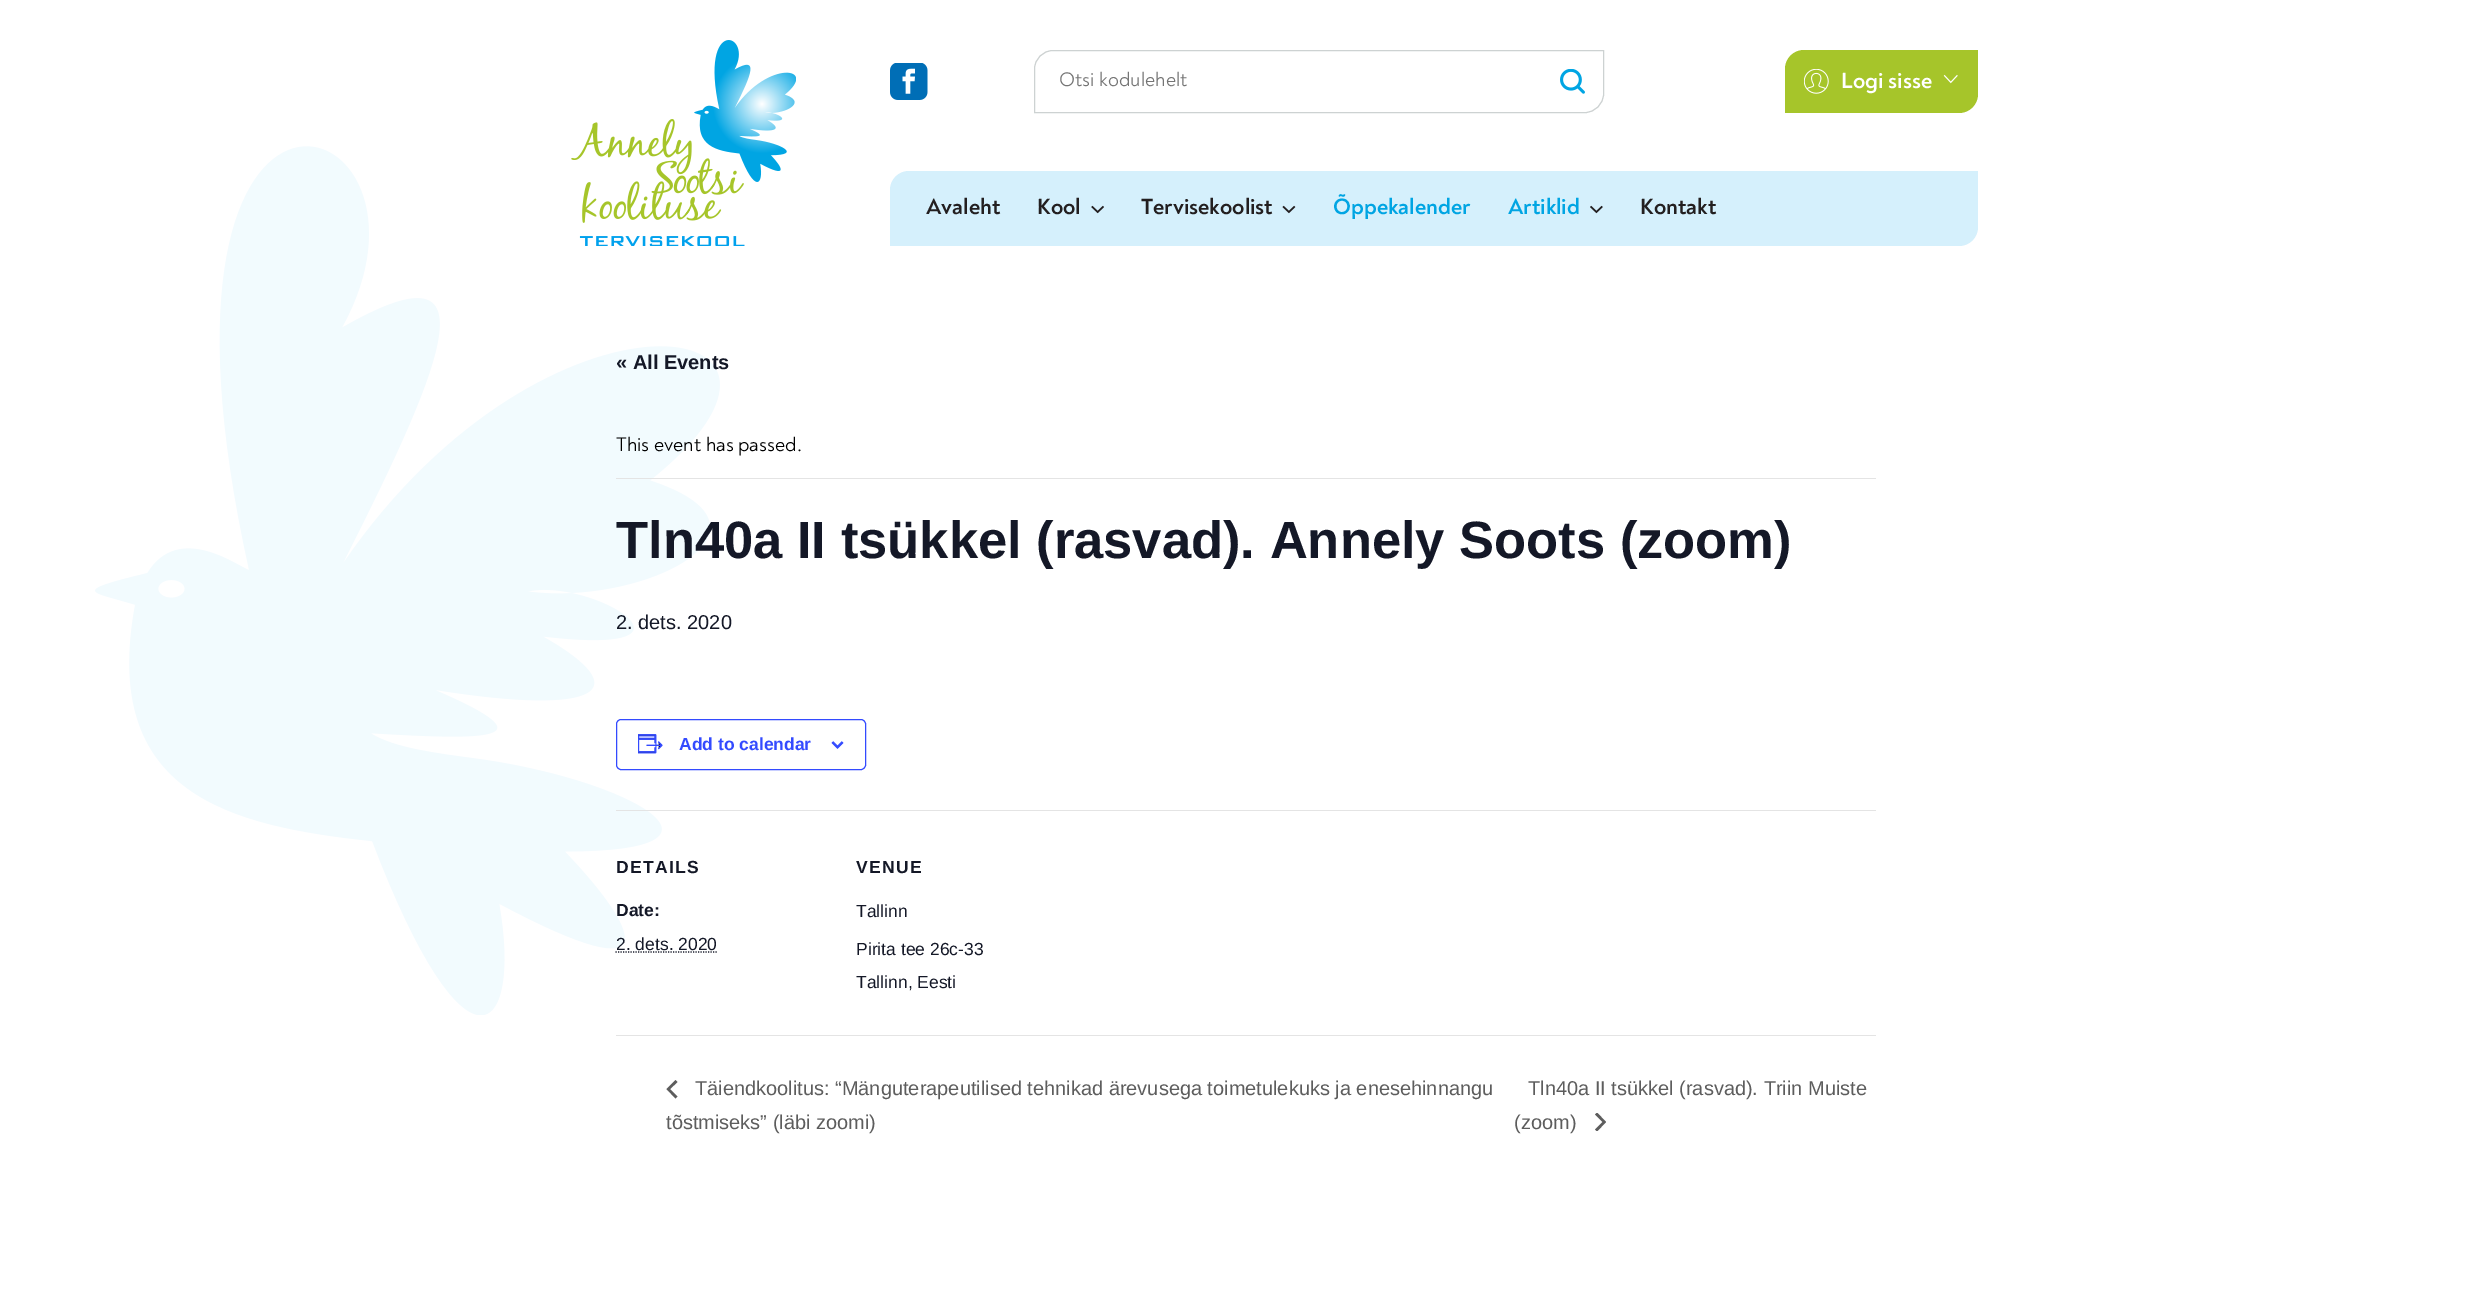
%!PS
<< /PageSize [2491 1302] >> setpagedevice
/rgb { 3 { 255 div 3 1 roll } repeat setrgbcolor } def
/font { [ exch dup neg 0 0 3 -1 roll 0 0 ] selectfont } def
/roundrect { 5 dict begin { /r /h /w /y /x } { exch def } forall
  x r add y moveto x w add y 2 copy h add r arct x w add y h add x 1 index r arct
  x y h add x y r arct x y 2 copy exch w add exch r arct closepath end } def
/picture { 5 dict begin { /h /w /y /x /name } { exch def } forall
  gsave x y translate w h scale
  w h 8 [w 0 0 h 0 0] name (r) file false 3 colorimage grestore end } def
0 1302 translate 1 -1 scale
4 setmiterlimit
255 255 255 rgb
0 0 2491 1302 rectfill
(img/9.rgb) 95 146 625 869 picture
(img/1.rgb) 571 40 225 206 picture
(img/2.rgb) 890 63 38 37 picture
205 210 210 rgb
1053 50.5 moveto 1603.5 50.5 lineto 1603.5 94 lineto 1603.5 104 1595 112.5 1585 112.5 curveto 1034.5 112.5 lineto 1034.5 69 lineto 1034.5 59 1043 50.5 1053 50.5 curveto closepath stroke
(img/3.rgb) 1560 69 25 25 picture
166 197 42 rgb
1804 50 moveto 1978 50 lineto 1978 94 lineto 1978 104.5 1969.5 113 1959 113 curveto 1785 113 lineto 1785 69 lineto 1785 58.5 1793.5 50 1804 50 curveto closepath fill
(img/4.rgb) 1804 69 25 25 picture
(img/5.rgb) 1943 74 15 10 picture
213 240 252 rgb
909 171 moveto 1978 171 lineto 1978 227 lineto 1978 237.5 1969.5 246 1959 246 curveto 890 246 lineto 890 190 lineto 890 179.5 898.5 171 909 171 curveto closepath fill
(img/6.rgb) 1091 205 13 9 picture
(img/7.rgb) 1282 205 14 9 picture
(img/8.rgb) 1590 205 13 9 picture
228 228 228 rgb
616 478 1260 1 rectfill
51 74 255 rgb
616.5 719.5 249 50 4.5 roundrect stroke
(img/10.rgb) 638 734 25 20 picture
(img/11.rgb) 831 741 13 8 picture
228 228 228 rgb
616 810 1260 1 rectfill
20 24 39 rgb
1.2 setlinewidth
[1.25 1.25] 0 setdash
615.5 952 moveto 717 952 lineto stroke
228 228 228 rgb
616 1035 1260 1 rectfill
93 93 93 rgb
677.5 1096.5 moveto 675.5 1098.5 lineto 666.5 1089 lineto 675.5 1080 lineto 677.5 1082 lineto 670 1089 lineto closepath fill
gsave
1595 1113 11 18 rectclip
1595 1114.5 moveto 1597 1112.5 lineto 1606 1122 lineto 1597 1131.5 lineto 1595 1129.5 lineto 1602.5 1122 lineto closepath fill
grestore
/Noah-Regular 20 font
117 117 117 rgb
1059 86 moveto (Otsi kodulehelt) show
/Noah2-Regular 22.5 font
255 255 255 rgb
1841 88 moveto (Logi sisse) show
35 31 32 rgb
[
  [(Avaleht) 926 214]
  [(Kool) 1037 214]
  [(Tervisekoolist) 1141 214]
] { aload pop moveto show } forall
0 165 227 rgb
1333 214 moveto (Õppekalender) show
1508 214 moveto (Artiklid) show
35 31 32 rgb
1640 214 moveto (Kontakt) show
/LiberationSans-Bold 20 font
20 24 39 rgb
616 369 moveto (« All Events) show
/Noah-Regular 20 font
0 0 0 rgb
616 451 moveto (This event has passed.) show
/LiberationSans-Bold 52.5 font
20 24 39 rgb
616 558 moveto (Tln40a II tsükkel \(rasvad\). Annely Soots \(zoom\)) show
/LiberationSans-Regular 20 font
616 629 moveto (2. dets. 2020) show
/LiberationSans-Bold 17.5 font
51 74 255 rgb
679 750 moveto (Add to calendar) show
20 24 39 rgb
616 873 moveto 1.25 0 (DETAILS) ashow
616 916 moveto (Date:) show
/LiberationSans-Regular 17.5 font
616 950 moveto (2. dets. 2020) show
/LiberationSans-Bold 17.5 font
856 873 moveto 1.25 0 (VENUE) ashow
/LiberationSans-Regular 17.5 font
[
  [(Tallinn) 856 917]
  [(Pirita tee 26c-33) 856 955]
  [(Tallinn, Eesti) 856 988]
] { aload pop moveto show } forall
/LiberationSans-Regular 20 font
93 93 93 rgb
[
  [(Täiendkoolitus: “Mänguterapeutilised tehnikad ärevusega toimetulekuks ja enesehinnangu) 695 1095]
  [(tõstmiseks” \(läbi zoomi\)) 666 1129]
  [(Tln40a II tsükkel \(rasvad\). Triin Muiste) 1528 1095]
  [(\(zoom\)) 1514 1129]
] { aload pop moveto show } forall
showpage
